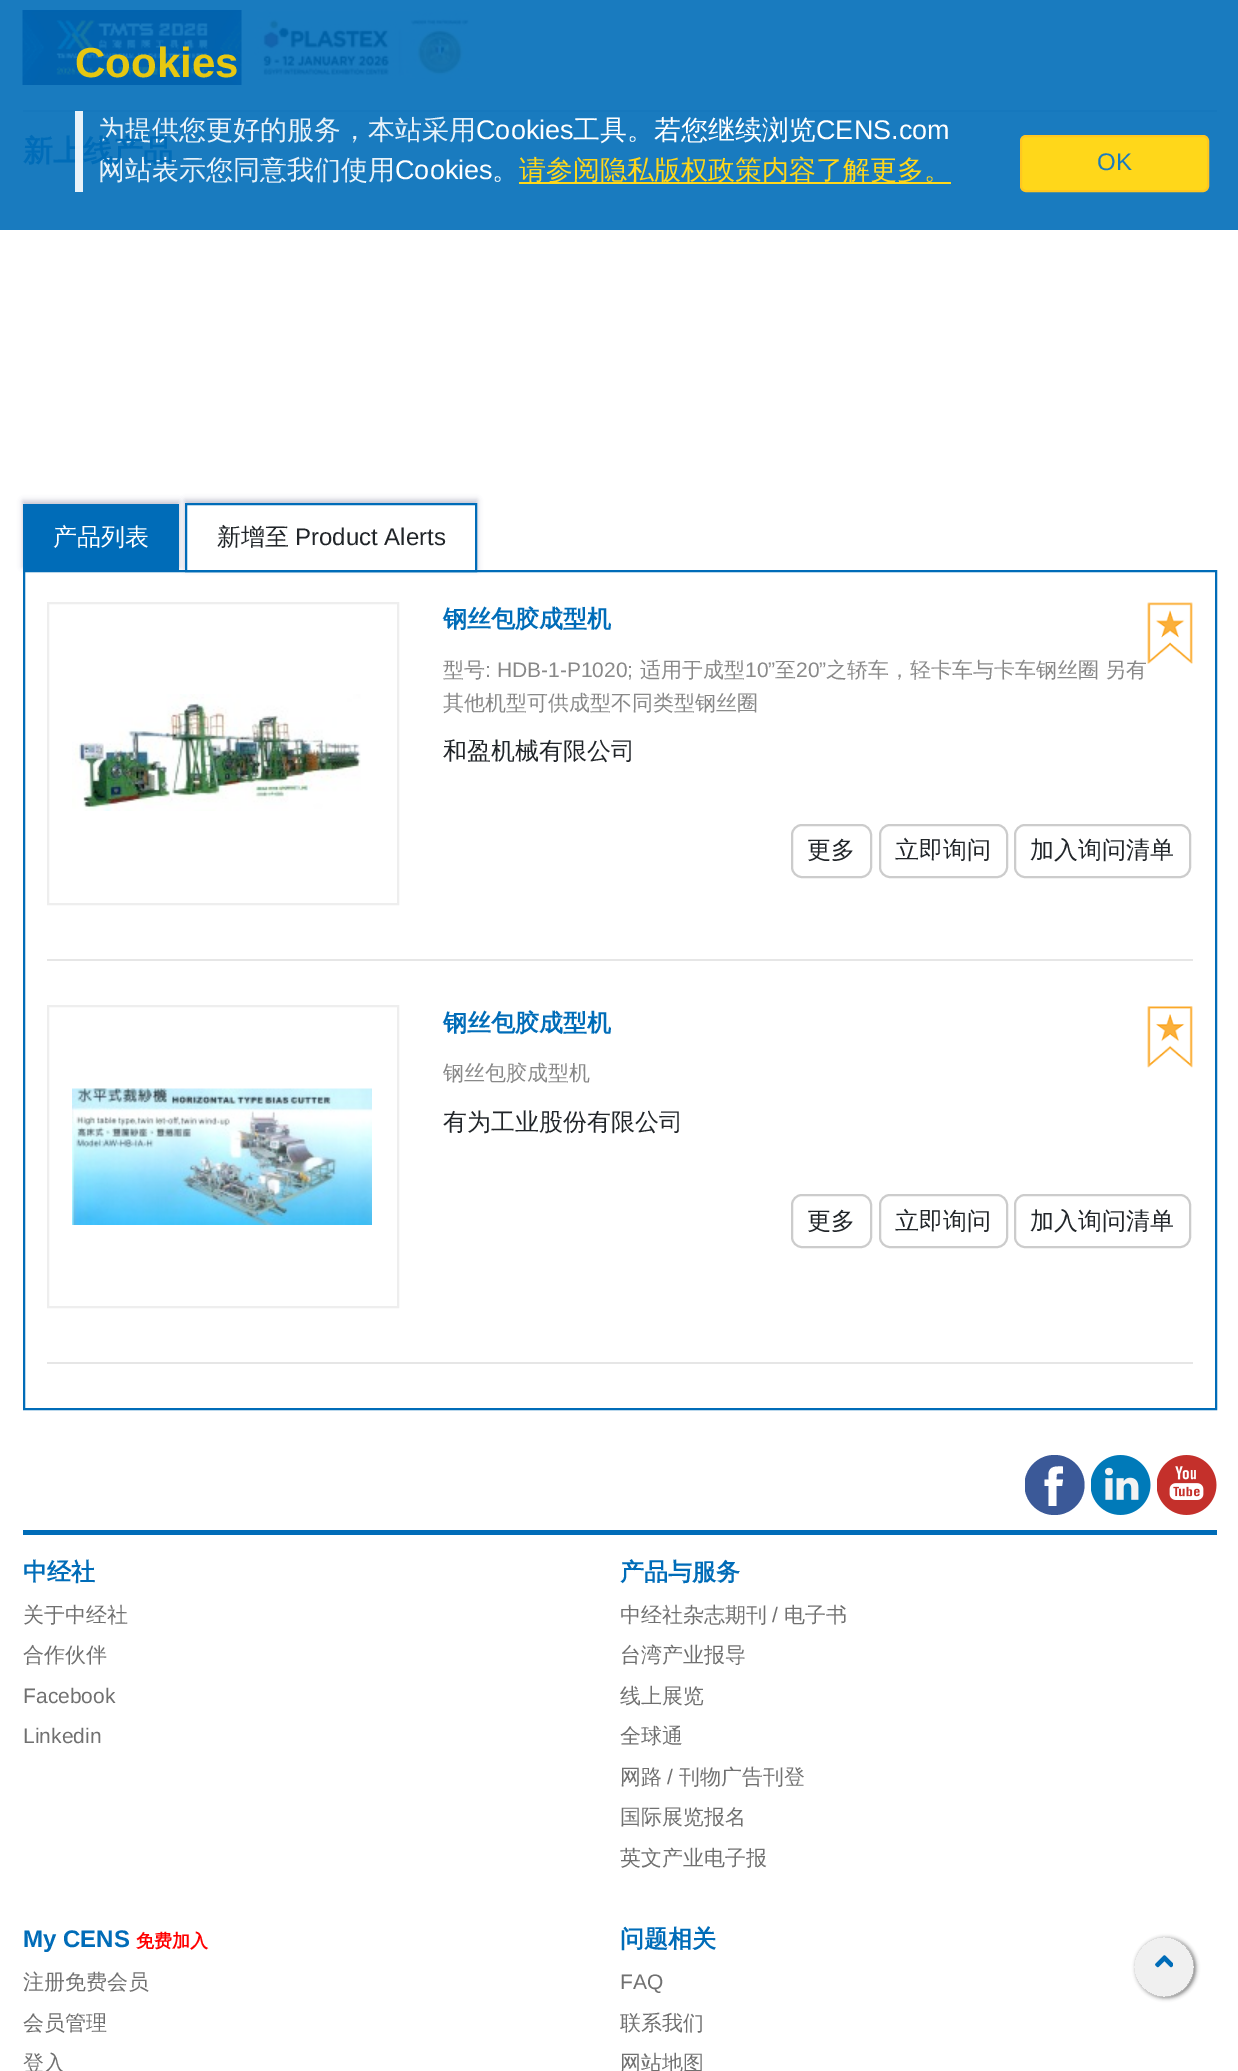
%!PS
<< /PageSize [1238 2071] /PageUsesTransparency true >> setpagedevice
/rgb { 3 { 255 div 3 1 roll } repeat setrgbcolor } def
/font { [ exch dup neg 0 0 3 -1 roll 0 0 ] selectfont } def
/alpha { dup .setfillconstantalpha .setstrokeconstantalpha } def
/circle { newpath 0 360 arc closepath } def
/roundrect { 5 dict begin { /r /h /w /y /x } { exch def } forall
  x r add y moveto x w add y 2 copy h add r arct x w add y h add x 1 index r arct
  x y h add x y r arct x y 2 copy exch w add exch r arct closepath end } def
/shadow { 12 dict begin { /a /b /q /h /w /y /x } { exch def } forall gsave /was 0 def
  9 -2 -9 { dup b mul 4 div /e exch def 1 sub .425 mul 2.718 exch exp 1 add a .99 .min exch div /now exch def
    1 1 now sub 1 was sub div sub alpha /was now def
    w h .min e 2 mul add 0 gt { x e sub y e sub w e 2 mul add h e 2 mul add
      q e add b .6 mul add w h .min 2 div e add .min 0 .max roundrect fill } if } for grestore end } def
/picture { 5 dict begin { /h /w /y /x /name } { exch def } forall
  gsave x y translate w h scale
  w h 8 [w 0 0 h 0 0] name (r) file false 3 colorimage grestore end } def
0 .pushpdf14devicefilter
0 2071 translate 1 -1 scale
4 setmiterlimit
255 255 255 rgb
0 0 1238 2071 rectfill
25 123 191 rgb
0 0 1238 230 rectfill
255 215 26 rgb
519 182 432 2 rectfill
1021 136 187 55 5 roundrect gsave fill grestore
255 199 32 rgb
2 setlinewidth
stroke
22 120 189 rgb
23 110 1194 2 rectfill
(img/1.rgb) 22 10 220 75 picture
(img/2.rgb) 254 10 215 70 picture
0 108 184 rgb
24 571 1192 838 rectstroke
51 51 102 rgb
23 501 156 66 0 3 0.3 shadow
0 108 184 rgb
23 504 156 66 rectfill
gsave
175 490 moveto 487 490 lineto 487 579 lineto 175 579 lineto closepath 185 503 moveto 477 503 lineto 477 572 lineto 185 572 lineto closepath eoclip newpath
51 51 102 rgb
185 500 292 69 0 3 0.3 shadow
grestore
186 504 290 67 rectstroke
238 238 238 rgb
48 603 350 301 rectstroke
(img/3.rgb) 72 694 289 117 picture
(img/4.rgb) 1147 602 46 62 picture
204 204 204 rgb
792 825 79 52 10 roundrect stroke
880 825 127 52 10 roundrect stroke
1015 825 175 52 10 roundrect stroke
230 230 230 rgb
47 959 1146 2 rectfill
238 238 238 rgb
48 1006 350 301 rectstroke
(img/5.rgb) 72 1088 300 137 picture
(img/6.rgb) 1147 1006 46 62 picture
204 204 204 rgb
792 1195 79 52 10 roundrect stroke
880 1195 127 52 10 roundrect stroke
1015 1195 175 52 10 roundrect stroke
230 230 230 rgb
47 1362 1146 2 rectfill
gsave
1025 1455 60 60 rectclip
59 89 152 rgb
1054.5 1485 30 circle fill
grestore
(img/7.rgb) 1091 1455 60 60 picture
(img/8.rgb) 1157 1455 60 60 picture
255 255 255 rgb
1062 1486 moveto 1056.5 1486 lineto 1056.5 1506 lineto 1048.5 1506 lineto 1048.5 1486 lineto 1044.5 1486 lineto 1044.5 1479.5 lineto 1048.5 1479.5 lineto 1048.5 1473.5 lineto 1049.5 1465.5 1057 1466.5 1063 1466.5 curveto 1063 1473.5 lineto 1056 1473.5 1056.5 1472.5 1056.5 1479.5 curveto 1063 1479.5 lineto closepath fill
0 108 184 rgb
23 1530 1194 5 rectfill
gsave
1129 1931 moveto 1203 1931 lineto 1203 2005 lineto 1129 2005 lineto closepath 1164 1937 moveto 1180.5 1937 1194 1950.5 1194 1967 curveto 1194 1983.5 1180.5 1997 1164 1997 curveto 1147.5 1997 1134 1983.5 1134 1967 curveto 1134 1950.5 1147.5 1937 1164 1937 curveto closepath eoclip newpath
136 136 136 rgb
1136 1938 60 60 30 2 1 shadow
grestore
0.5 alpha
226 226 226 rgb
1164 1967 30 circle fill
1 alpha
(img/9.rgb) 1155 1955 18 13 picture
/LiberationSans-Bold 42 font
230 199 17 rgb
75 77 moveto (Cookies) show
/WenQuanYiZenHei-Medium 27 font
232 242 249 rgb
98 139 moveto (为提供您更好的服务，本站采用) show
/LiberationSans-Regular 27 font
255 255 255 rgb
476 139 moveto (Cookies) show
/WenQuanYiZenHei-Medium 27 font
573 139 moveto (工具。若您继续浏览) show
/LiberationSans-Regular 27 font
816 139 moveto (CENS.com) show
/WenQuanYiZenHei-Medium 27 font
232 242 249 rgb
98 179 moveto (网站表示您同意我们使用) show
/LiberationSans-Regular 27 font
255 255 255 rgb
395 179 moveto (Cookies) show
/WenQuanYiZenHei-Medium 27 font
492 179 moveto (。) show
255 215 26 rgb
519 179 moveto (请参阅隐私版权政策内容了解更多。) show
/LiberationSans-Regular 24 font
26 123 191 rgb
1097 170 moveto (OK) show
/WenQuanYiZenHei-Bold 30 font
0 108 184 rgb
23 161 moveto (新上线产品) show
0.9 alpha
255 255 255 rgb
75 111 8 81 rectfill
/WenQuanYiZenHei-Medium 24 font
1 alpha
53 545 moveto (产品列表) show
33 37 41 rgb
217 545 moveto (新增至) show
/LiberationSans-Regular 24 font
295 545 moveto (Product Alerts) show
/WenQuanYiZenHei-Bold 24 font
0 108 184 rgb
443 627 moveto (钢丝包胶成型机) show
/WenQuanYiZenHei-Medium 21 font
136 136 136 rgb
443 677 moveto (型号) show
/LiberationSans-Regular 21 font
485 677 moveto (: HDB-1-P1020;) show
/WenQuanYiZenHei-Medium 21 font
640 677 moveto (适用于成型) show
/LiberationSans-Regular 21 font
745 677 moveto (10”) show
/WenQuanYiZenHei-Medium 21 font
775 677 moveto (至) show
/LiberationSans-Regular 21 font
796 677 moveto (20”) show
/WenQuanYiZenHei-Medium 21 font
[
  [(之轿车，轻卡车与卡车钢丝圈) 826 677]
  [(另有) 1105 677]
  [(其他机型可供成型不同类型钢丝圈) 443 710]
] { aload pop moveto show } forall
/WenQuanYiZenHei-Medium 24 font
33 37 41 rgb
[
  [(和盈机械有限公司) 443 759]
  [(更多) 807 858]
  [(立即询问) 895 858]
  [(加入询问清单) 1030 858]
] { aload pop moveto show } forall
/WenQuanYiZenHei-Bold 24 font
0 108 184 rgb
443 1031 moveto (钢丝包胶成型机) show
/WenQuanYiZenHei-Medium 21 font
136 136 136 rgb
443 1080 moveto (钢丝包胶成型机) show
/WenQuanYiZenHei-Medium 24 font
33 37 41 rgb
[
  [(有为工业股份有限公司) 443 1130]
  [(更多) 807 1229]
  [(立即询问) 895 1229]
  [(加入询问清单) 1030 1229]
] { aload pop moveto show } forall
/WenQuanYiZenHei-Bold 24 font
0 108 184 rgb
23 1580 moveto (中经社) show
/WenQuanYiZenHei-Medium 21 font
112 112 112 rgb
23 1622 moveto (关于中经社) show
23 1662 moveto (合作伙伴) show
/LiberationSans-Regular 21 font
23 1703 moveto (Facebook) show
23 1743 moveto (Linkedin) show
/WenQuanYiZenHei-Bold 24 font
0 108 184 rgb
620 1580 moveto (产品与服务) show
/WenQuanYiZenHei-Medium 21 font
112 112 112 rgb
620 1622 moveto (中经社杂志期刊) show
/LiberationSans-Regular 21 font
772 1622 moveto (/) show
/WenQuanYiZenHei-Medium 21 font
[
  [(电子书) 784 1622]
  [(台湾产业报导) 620 1662]
  [(线上展览) 620 1703]
  [(全球通) 620 1743]
  [(网路) 620 1784]
] { aload pop moveto show } forall
/LiberationSans-Regular 21 font
667 1784 moveto (/) show
/WenQuanYiZenHei-Medium 21 font
[
  [(刊物广告刊登) 679 1784]
  [(国际展览报名) 620 1824]
  [(英文产业电子报) 620 1865]
] { aload pop moveto show } forall
/LiberationSans-Bold 24 font
0 108 184 rgb
23 1947 moveto (My CENS) show
/WenQuanYiZenHei-Bold 18 font
255 0 0 rgb
136 1947 moveto (免费加入) show
/WenQuanYiZenHei-Medium 21 font
112 112 112 rgb
[
  [(注册免费会员) 23 1989]
  [(会员管理) 23 2030]
  [(登入) 23 2070]
] { aload pop moveto show } forall
/WenQuanYiZenHei-Bold 24 font
0 108 184 rgb
620 1947 moveto (问题相关) show
/LiberationSans-Regular 21 font
112 112 112 rgb
620 1989 moveto (FAQ) show
/WenQuanYiZenHei-Medium 21 font
620 2030 moveto (联系我们) show
620 2070 moveto (网站地图) show
.poppdf14devicefilter showpage
